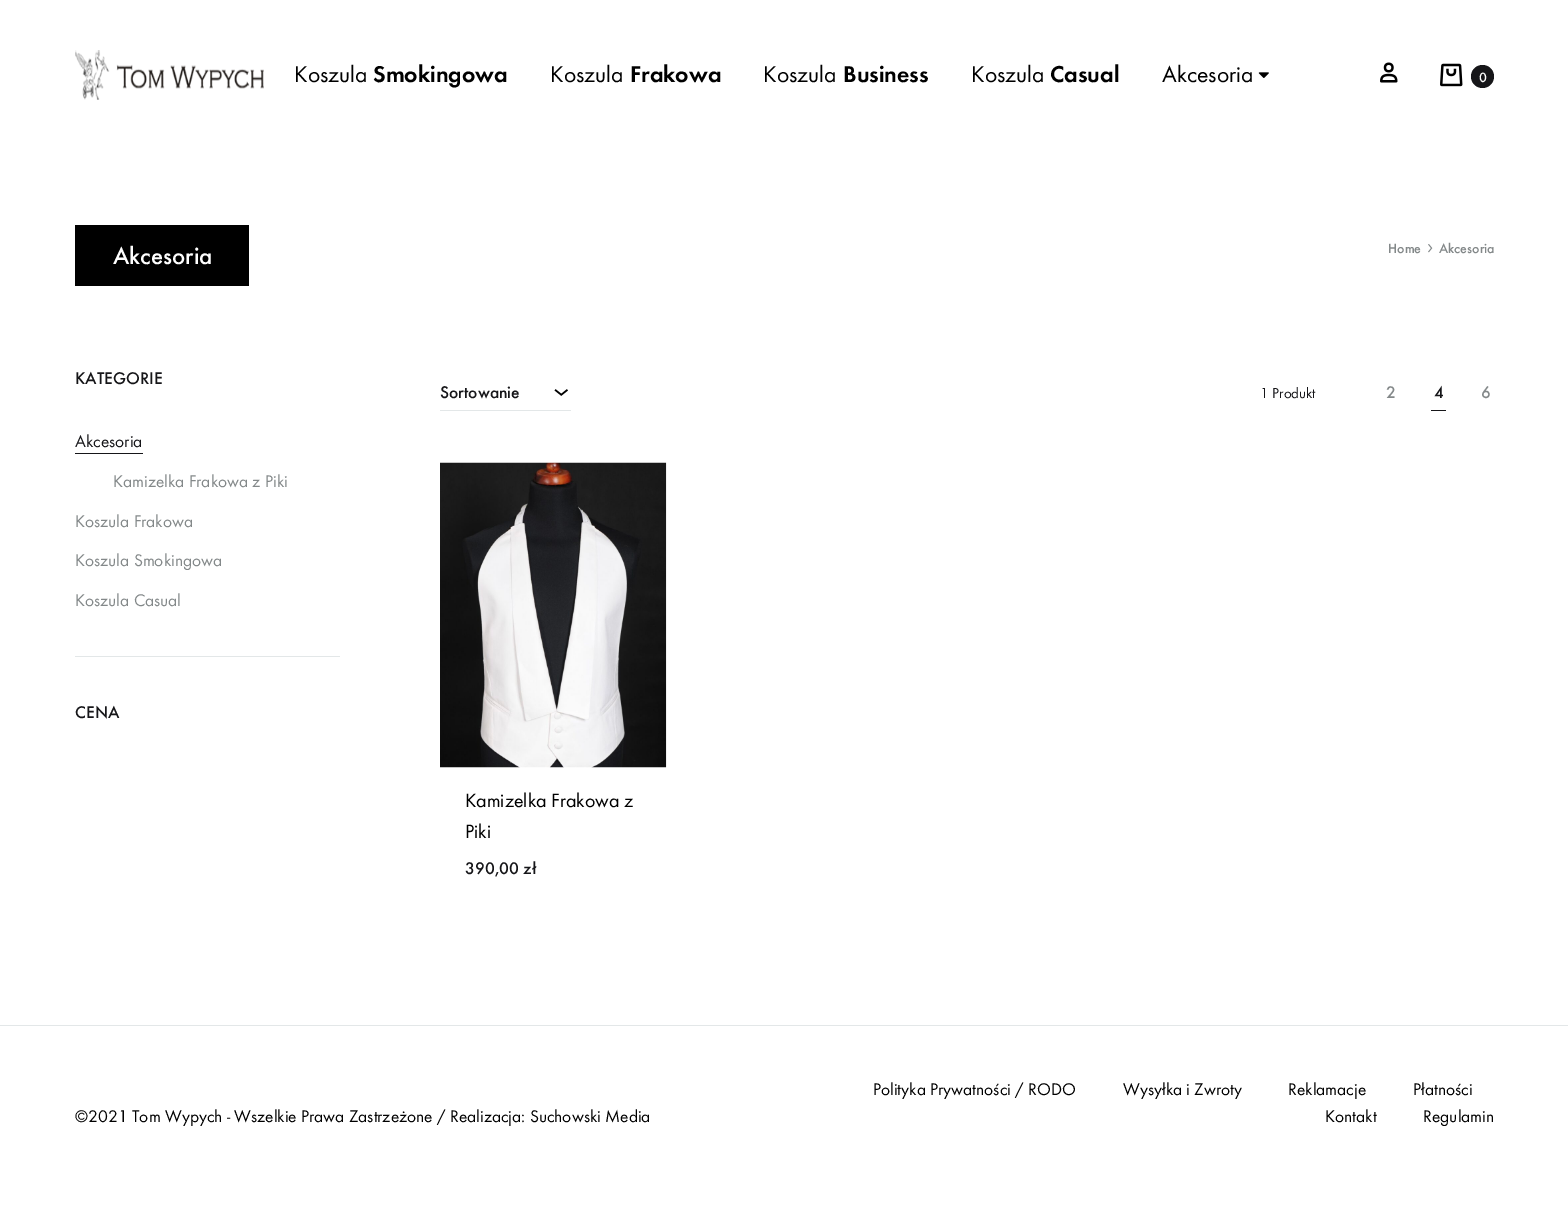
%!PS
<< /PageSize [1568 1207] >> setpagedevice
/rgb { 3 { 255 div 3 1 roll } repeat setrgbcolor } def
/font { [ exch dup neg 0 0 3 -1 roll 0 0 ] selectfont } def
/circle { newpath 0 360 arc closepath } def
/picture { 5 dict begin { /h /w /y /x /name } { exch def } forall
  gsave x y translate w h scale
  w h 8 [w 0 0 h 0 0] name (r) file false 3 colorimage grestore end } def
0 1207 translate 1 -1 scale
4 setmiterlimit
255 255 255 rgb
0 0 1568 1207 rectfill
(img/1.rgb) 75 50 189 50 picture
(img/2.rgb) 1258 72 11 6 picture
(img/3.rgb) 1380 62 18 21 picture
(img/4.rgb) 1440 63 23 24 picture
22 22 25 rgb
1482.5 76.5 11.5 circle fill
0 0 0 rgb
75 225 174 61 rectfill
(img/5.rgb) 1428 244 5 9 picture
[
  [75 656 265 1 227 231 232]
  [75 453 68 1 22 22 25]
  [440 410 131 1 227 231 232]
] { aload pop rgb rectfill } forall
(img/6.rgb) 554 389 14 7 picture
22 22 25 rgb
1431 410 15 1 rectfill
(img/7.rgb) 440 462 227 306 picture
227 231 232 rgb
0 1025 1568 1 rectfill
/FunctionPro-Regular 23.75 font
0 0 0 rgb
294 82 moveto (Koszula) show
/FunctionPro-SemiBold 23.75 font
373 82 moveto (Smokingowa) show
/FunctionPro-Regular 23.75 font
550 82 moveto (Koszula) show
/FunctionPro-SemiBold 23.75 font
630 82 moveto (Frakowa) show
/FunctionPro-Regular 23.75 font
763 82 moveto (Koszula) show
/FunctionPro-SemiBold 23.75 font
843 82 moveto (Business) show
/FunctionPro-Regular 23.75 font
971 82 moveto (Koszula) show
/FunctionPro-SemiBold 23.75 font
1050 82 moveto (Casual) show
/FunctionPro-Regular 23.75 font
1162 82 moveto (Akcesoria) show
/FunctionPro-Medium 14 font
255 255 255 rgb
1479 82 moveto (0) show
/FunctionPro-Medium 25 font
113 264 moveto (Akcesoria) show
/FunctionPro-Medium 14 font
131 136 137 rgb
1388 253 moveto (Home) show
1439 253 moveto (Akcesoria) show
/FunctionPro-Medium 17.5 font
22 22 25 rgb
75 384 moveto (KATEGORIE) show
/FunctionPro-Regular 17.5 font
75 447 moveto (Akcesoria) show
131 136 137 rgb
[
  [(Kamizelka Frakowa z Piki) 113 487]
  [(Koszula Frakowa) 75 527]
  [(Koszula Smokingowa) 75 566]
  [(Koszula Casual) 75 606]
] { aload pop moveto show } forall
/FunctionPro-Medium 17.5 font
22 22 25 rgb
75 718 moveto (CENA) show
440 398 moveto (Sortowanie) show
/FunctionPro-Regular 15 font
1260 398 moveto (1 Produkt) show
/FunctionPro-Medium 17.5 font
131 136 137 rgb
1386 398 moveto (2) show
22 22 25 rgb
1434 398 moveto (4) show
131 136 137 rgb
1481 398 moveto (6) show
/FunctionPro-Regular 20 font
0 0 0 rgb
465 807 moveto (Kamizelka Frakowa z) show
465 838 moveto (Piki) show
/FunctionPro-Medium 17.5 font
22 22 25 rgb
465 874 moveto (390,00 zł) show
/FunctionPro-Regular 17.5 font
0 0 0 rgb
[
  [(©2021 Tom Wypych - Wszelkie Prawa Zastrzeżone / Realizacja: Suchowski Media) 75 1122]
  [(Polityka Prywatności / RODO) 873 1095]
  [(Wysyłka i Zwroty) 1123 1095]
  [(Reklamacje) 1288 1095]
  [(Płatności) 1413 1095]
  [(Kontakt) 1325 1122]
  [(Regulamin) 1423 1122]
] { aload pop moveto show } forall
showpage
